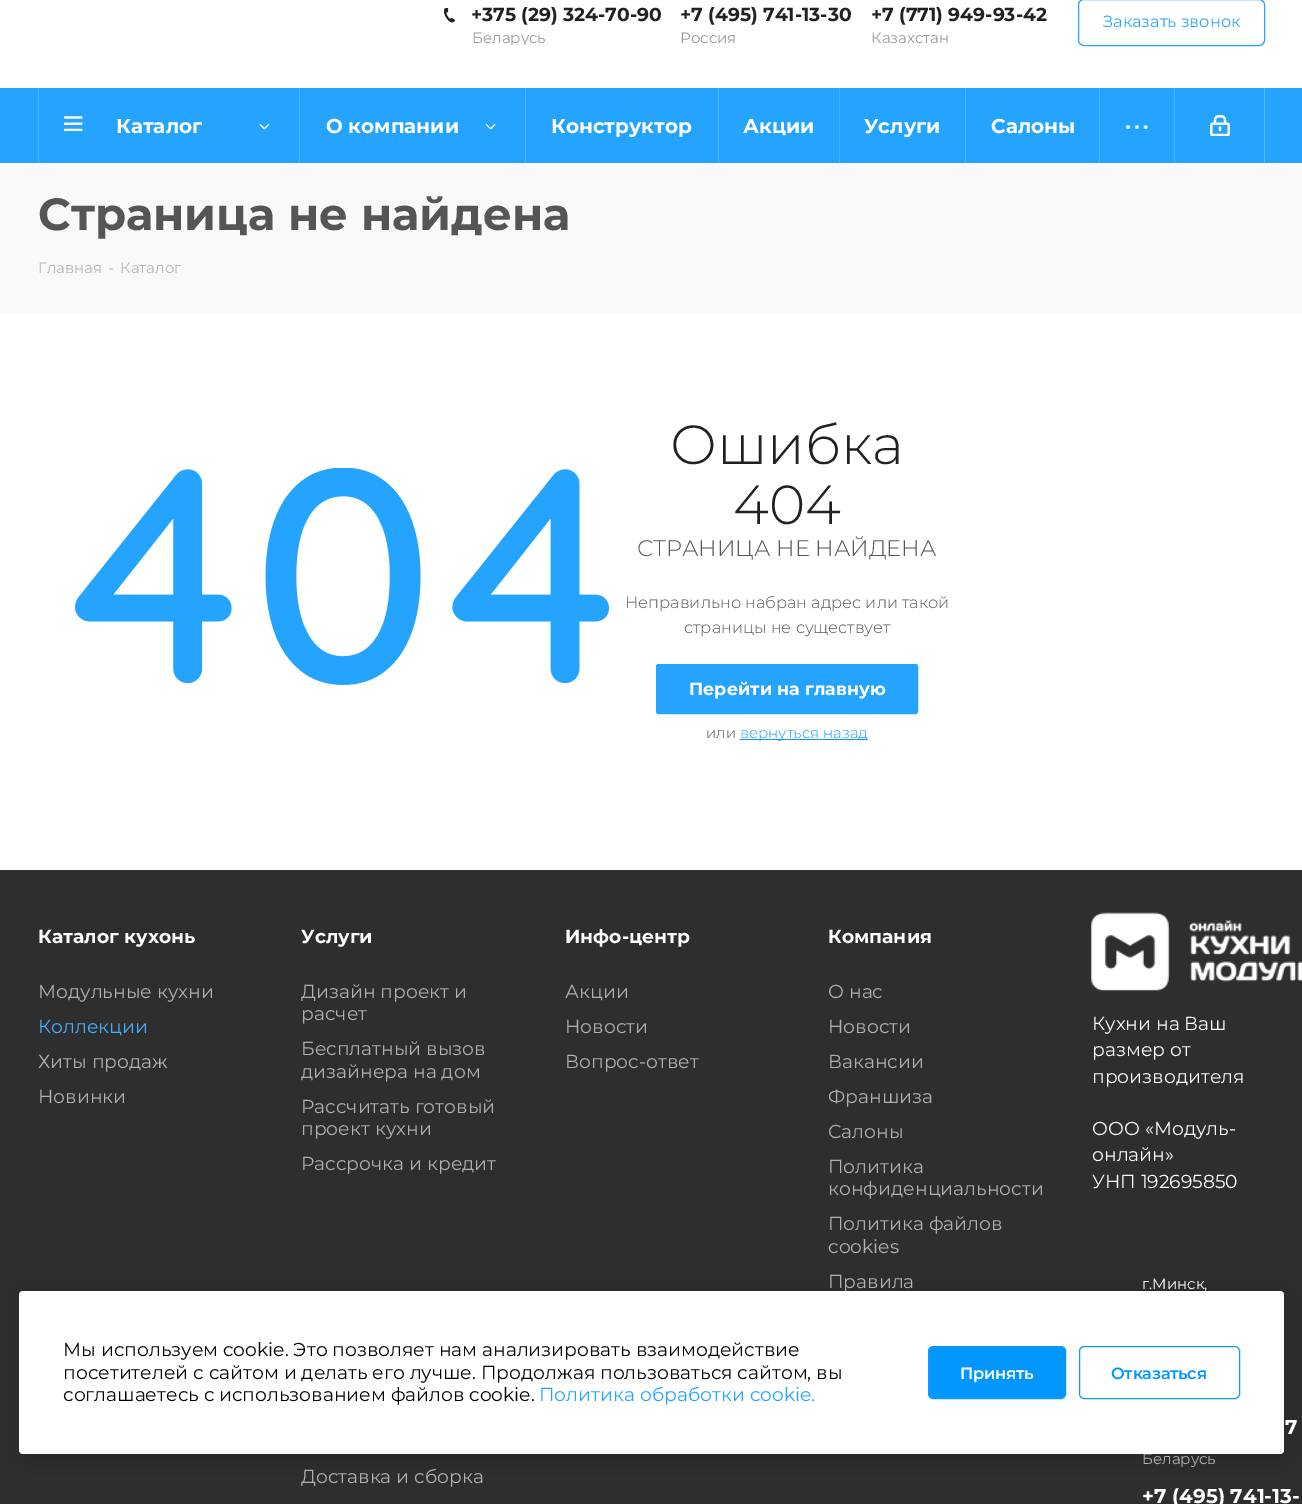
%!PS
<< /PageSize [1302 1504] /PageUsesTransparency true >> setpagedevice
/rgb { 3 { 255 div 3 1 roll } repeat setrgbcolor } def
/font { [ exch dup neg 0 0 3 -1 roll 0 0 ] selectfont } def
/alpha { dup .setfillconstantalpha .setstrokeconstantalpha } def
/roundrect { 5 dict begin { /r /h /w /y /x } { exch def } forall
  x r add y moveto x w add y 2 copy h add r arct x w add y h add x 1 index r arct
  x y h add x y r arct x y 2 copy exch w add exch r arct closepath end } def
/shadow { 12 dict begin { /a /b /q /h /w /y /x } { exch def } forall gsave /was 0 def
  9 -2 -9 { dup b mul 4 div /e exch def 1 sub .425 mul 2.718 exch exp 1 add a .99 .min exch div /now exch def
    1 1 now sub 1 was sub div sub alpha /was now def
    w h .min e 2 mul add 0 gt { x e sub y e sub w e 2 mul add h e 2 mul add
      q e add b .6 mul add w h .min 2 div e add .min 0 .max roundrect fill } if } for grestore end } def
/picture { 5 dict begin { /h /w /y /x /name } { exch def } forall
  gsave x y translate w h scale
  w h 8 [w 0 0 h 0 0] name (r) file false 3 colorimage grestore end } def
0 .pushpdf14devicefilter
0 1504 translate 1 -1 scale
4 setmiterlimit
255 255 255 rgb
0 0 1302 1504 rectfill
(img/1.rgb) 444 8 11 15 picture
36 164 255 rgb
1078.5 -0.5 186 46 5.5 roundrect stroke
[
  [0 88 1302 75 36 164 255]
  [38 88 1 75 69 178 255]
  [299 88 1 75 69 178 255]
] { aload pop rgb rectfill } forall
(img/2.rgb) 64 116 19 15 picture
(img/3.rgb) 259 123 11 7 picture
525 88 1 75 rectfill
(img/4.rgb) 485 123 11 7 picture
[
  [718 88 1 75 69 178 255]
  [839 88 1 75 69 178 255]
  [965 88 1 75 69 178 255]
  [1099 88 1 75 69 178 255]
  [1174 88 1 75 69 178 255]
] { aload pop rgb rectfill } forall
(img/5.rgb) 1126 125 22 4 picture
80 182 255 rgb
1264 88 1 75 rectfill
(img/6.rgb) 1210 115 20 21 picture
249 249 249 rgb
0 163 1302 151 rectfill
(img/7.rgb) 75 468 534 217 picture
36 164 255 rgb
656.5 664.5 261 49 2 roundrect gsave fill grestore
stroke
11 153 255 rgb
740 739 128 1 rectfill
46 46 47 rgb
0 870 1302 634 rectfill
(img/8.rgb) 1091 912 211 79 picture
0 0 0 rgb
21 1294 1265 162 4 16 0.12 shadow
/Montserrat-Bold 18.75 font
33 33 33 rgb
471 21 moveto (+375 \(29\) 324-70-90) show
gsave
473 30 188 15 rectclip
/Montserrat-Regular 15 font
153 153 153 rgb
472 43 moveto (Беларусь) show
grestore
680 21 moveto (+7 \(495\) 741-13-30) show
/Montserrat-Regular 15 font
153 153 153 rgb
680 43 moveto (Россия) show
/Montserrat-Bold 18.75 font
33 33 33 rgb
871 21 moveto (+7 \(771\) 949-93-42) show
/Montserrat-Regular 15 font
153 153 153 rgb
871 43 moveto (Казахстан) show
/Montserrat-Regular 16.25 font
36 164 255 rgb
1103 27 moveto (Заказать звонок) show
/Montserrat-Bold 20 font
255 255 255 rgb
[
  [(Каталог) 116 133]
  [(О компании) 326 133]
  [(Конструктор) 551 133]
  [(Акции) 743 133]
  [(Услуги) 864 133]
  [(Салоны) 991 133]
] { aload pop moveto show } forall
/Montserrat-Bold 45 font
85 85 85 rgb
38 230 moveto (Страница не найдена) show
/Montserrat-Regular 15 font
182 181 181 rgb
[
  [(Главная) 38 273]
  [(-) 108 273]
  [(Каталог) 120 273]
] { aload pop moveto show } forall
/Montserrat-Light 55 font
33 33 33 rgb
670 464 moveto (Ошибка) show
733 524 moveto (404) show
/Montserrat-Light 22.5 font
85 85 85 rgb
637 556 moveto (СТРАНИЦА НЕ НАЙДЕНА) show
/Montserrat-Light 16.25 font
625 608 moveto (Неправильно набран адрес или такой) show
684 633 moveto (страницы не существует) show
/Montserrat-Bold 17.5 font
255 255 255 rgb
689 695 moveto (Перейти на главную) show
/Montserrat-Light 15 font
85 85 85 rgb
706 738 moveto (или) show
11 153 255 rgb
740 738 moveto (вернуться назад) show
/Montserrat-Bold 18.75 font
255 255 255 rgb
38 943 moveto (Каталог кухонь) show
/Montserrat-Regular 18.75 font
176 176 176 rgb
38 998 moveto (Модульные кухни) show
67 177 255 rgb
38 1033 moveto (Коллекции) show
176 176 176 rgb
38 1068 moveto (Хиты продаж) show
38 1103 moveto (Новинки) show
/Montserrat-Bold 18.75 font
255 255 255 rgb
301 943 moveto (Услуги) show
/Montserrat-Regular 18.75 font
176 176 176 rgb
[
  [(Дизайн проект и) 301 998]
  [(расчет) 301 1020]
  [(Бесплатный вызов) 301 1055]
  [(дизайнера на дом) 301 1078]
  [(Рассчитать готовый) 301 1113]
  [(проект кухни) 301 1135]
  [(Рассрочка и кредит) 301 1170]
] { aload pop moveto show } forall
/Montserrat-Bold 18.75 font
255 255 255 rgb
565 943 moveto (Инфо-центр) show
/Montserrat-Regular 18.75 font
176 176 176 rgb
[
  [(Акции) 565 998]
  [(Новости) 565 1033]
  [(Вопрос-ответ) 565 1068]
] { aload pop moveto show } forall
/Montserrat-Bold 18.75 font
255 255 255 rgb
828 943 moveto (Компания) show
/Montserrat-Regular 18.75 font
176 176 176 rgb
[
  [(О нас) 828 998]
  [(Новости) 828 1033]
  [(Вакансии) 828 1068]
  [(Франшиза) 828 1103]
  [(Салоны) 828 1138]
  [(Политика) 828 1173]
  [(конфиденциальности) 828 1195]
  [(Политика файлов) 828 1230]
  [(cookies) 828 1253]
  [(Правила) 828 1288]
  [(Доставка и сборка) 301 1483]
] { aload pop moveto show } forall
255 255 255 rgb
[
  [(Кухни на Ваш) 1092 1030]
  [(размер от) 1092 1056]
  [(производителя) 1092 1083]
  [(ООО «Модуль-) 1092 1135]
  [(онлайн») 1092 1161]
  [(УНП 192695850) 1092 1188]
] { aload pop moveto show } forall
/Montserrat-Regular 15 font
1142 1289 moveto (г.Минск,) show
/Montserrat-Bold 20 font
1285 1434 moveto (7) show
/Montserrat-Regular 15 font
176 176 176 rgb
1142 1464 moveto (Беларусь) show
/Montserrat-Bold 20 font
255 255 255 rgb
1142 1503 moveto (+7 \(495\) 741-13-) show
19 1291 1265 163 4 roundrect fill
/Montserrat-Regular 18.75 font
0 0 0 rgb
[
  [(Мы используем cookie. Это позволяет нам анализировать взаимодействие) 63 1356]
  [(посетителей с сайтом и делать его лучше. Продолжая пользоваться сайтом, вы) 63 1379]
  [(соглашаетесь с использованием файлов cookie.) 63 1401]
] { aload pop moveto show } forall
36 164 255 rgb
539 1401 moveto (Политика обработки cookie.) show
3 151 254 rgb
928.5 1346.5 137 52 4.5 roundrect gsave fill grestore
11 153 255 rgb
stroke
/Montserrat-SemiBold 16.25 font
255 255 255 rgb
960 1379 moveto -0.25 0 (Принять) ashow
11 153 255 rgb
1079.5 1346.5 160 52 4.5 roundrect stroke
3 151 254 rgb
1111 1379 moveto -0.25 0 (Отказаться) ashow
.poppdf14devicefilter showpage
